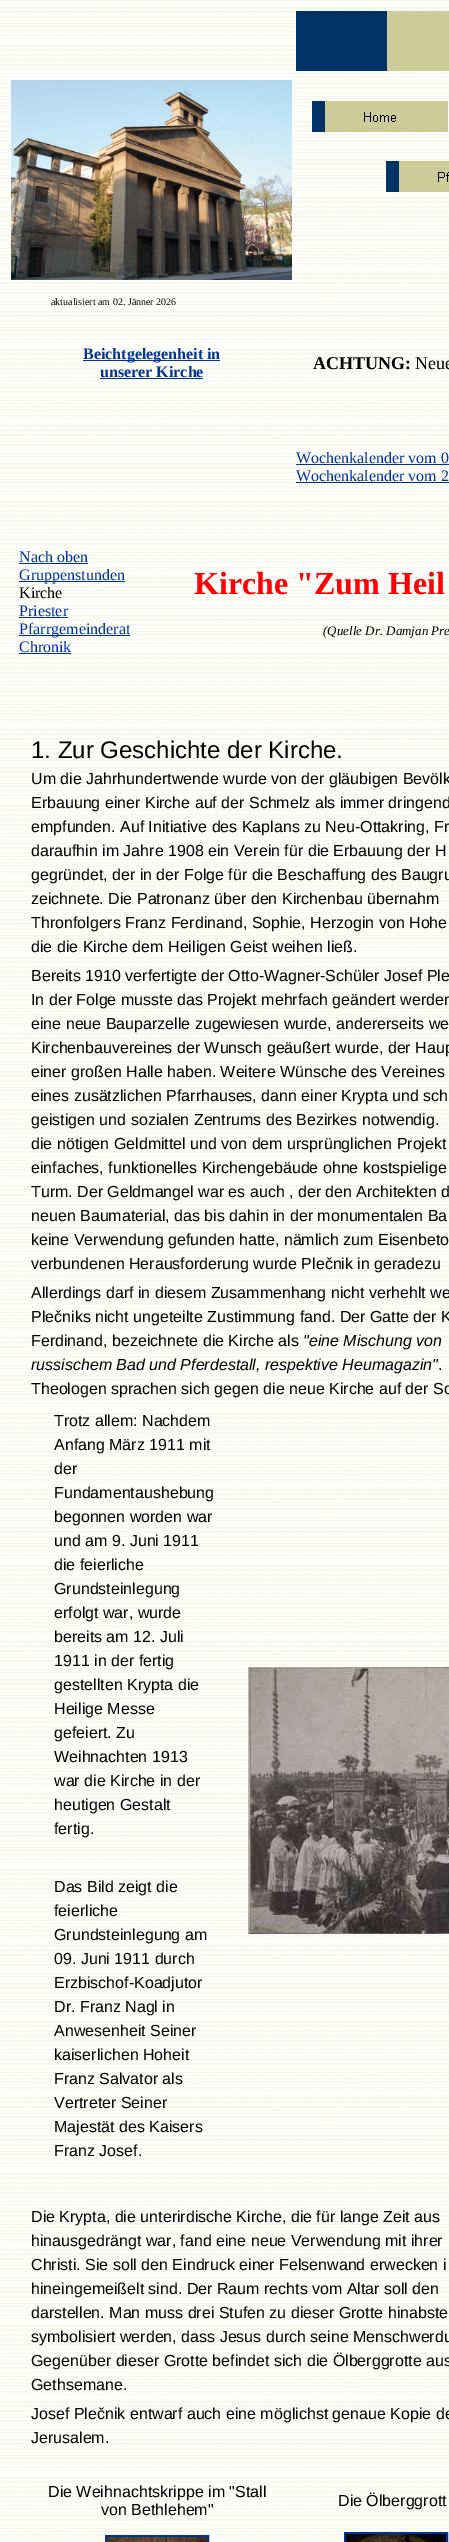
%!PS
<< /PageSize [449 2542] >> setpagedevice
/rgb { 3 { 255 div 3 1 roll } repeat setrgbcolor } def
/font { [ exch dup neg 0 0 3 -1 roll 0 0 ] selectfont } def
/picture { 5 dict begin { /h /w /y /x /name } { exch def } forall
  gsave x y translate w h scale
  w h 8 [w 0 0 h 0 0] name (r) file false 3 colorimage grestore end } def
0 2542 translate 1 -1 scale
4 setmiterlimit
255 255 255 rgb
0 0 449 2542 rectfill
(img/1.rgb) 0 0 449 2542 picture
(img/2.rgb) 11 80 281 200 picture
0 51 153 rgb
83 360 137 1 rectfill
100 378 103 1 rectfill
(img/3.rgb) 296 11 153 60 picture
(img/4.rgb) 312 101 136 31 picture
(img/5.rgb) 386 161 63 31 picture
[
  [296 464 153 1 0 51 153]
  [296 482 153 1 0 51 153]
  [19 563 69 1 0 51 153]
  [19 581 106 1 0 51 153]
  [19 617 49 1 0 51 153]
  [19 635 111 1 0 51 153]
  [19 653 52 1 0 51 153]
] { aload pop rgb rectfill } forall
(img/6.rgb) 248 1667 201 267 picture
2 setlinewidth
106 2536 102 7 rectstroke
(img/7.rgb) 107 2537 100 5 picture
345 2533 102 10 rectstroke
(img/8.rgb) 346 2534 100 8 picture
/LiberationSerif-Regular 10 font
0 0 0 rgb
51 305 moveto (aktualisiert am 02. Jänner 2026) show
/LiberationSerif-Bold 16 font
0 51 153 rgb
83 359 moveto (Beichtgelegenheit in) show
100 377 moveto (unserer Kirche) show
/LiberationSerif-Bold 18 font
0 0 0 rgb
313 369 moveto (ACHTUNG:) show
/LiberationSerif-Regular 18 font
415 369 moveto (Neue) show
/LiberationSerif-Regular 16 font
0 51 153 rgb
[
  [(Wochenkalender vom 0) 296 463]
  [(Wochenkalender vom 2) 296 481]
  [(Nach oben) 19 562]
  [(Gruppenstunden) 19 580]
] { aload pop moveto show } forall
0 0 0 rgb
19 598 moveto (Kirche) show
0 51 153 rgb
[
  [(Priester) 19 616]
  [(Pfarrgemeinderat) 19 634]
  [(Chronik) 19 652]
] { aload pop moveto show } forall
/LiberationSerif-Bold 32 font
255 0 0 rgb
194 594 moveto (Kirche "Zum Heil) show
/LiberationSerif-Italic 13 font
0 0 0 rgb
323 635 moveto (\(Quelle Dr. Damjan Pre) show
/LiberationSans-Regular 24 font
31 758 moveto (1. Zur Geschichte der Kirche.) show
/LiberationSans-Regular 16 font
[
  [(Um die Jahrhundertwende wurde von der gläubigen Bevölk) 31 784]
  [(Erbauung einer Kirche auf der Schmelz als immer dringend) 31 808]
  [(empfunden. Auf Initiative des Kaplans zu Neu-Ottakring, Fr) 31 832]
  [(daraufhin im Jahre 1908 ein Verein für die Erbauung der H) 31 856]
  [(gegründet, der in der Folge für die Beschaffung des Baugru) 31 880]
  [(zeichnete. Die Patronanz über den Kirchenbau übernahm) 31 904]
  [(Thronfolgers Franz Ferdinand, Sophie, Herzogin von Hohe) 31 928]
  [(die die Kirche dem Heiligen Geist weihen ließ.) 31 952]
  [(Bereits 1910 verfertigte der Otto-Wagner-Schüler Josef Ple) 31 981]
  [(In der Folge musste das Projekt mehrfach geändert werden) 31 1005]
  [(eine neue Bauparzelle zugewiesen wurde, andererseits we) 31 1029]
  [(Kirchenbauvereines der Wunsch geäußert wurde, der Haup) 31 1053]
  [(einer großen Halle haben. Weitere Wünsche des Vereines) 31 1077]
  [(eines zusätzlichen Pfarrhauses, dann einer Krypta und sch) 31 1101]
  [(geistigen und sozialen Zentrums des Bezirkes notwendig.) 31 1125]
  [(die nötigen Geldmittel und von dem ursprünglichen Projekt) 31 1149]
  [(einfaches, funktionelles Kirchengebäude ohne kostspielige) 31 1173]
  [(Turm. Der Geldmangel war es auch , der den Architekten d) 31 1197]
  [(neuen Baumaterial, das bis dahin in der monumentalen Ba) 31 1221]
  [(keine Verwendung gefunden hatte, nämlich zum Eisenbeto) 31 1245]
  [(verbundenen Herausforderung wurde Plečnik in geradezu) 31 1269]
  [(Allerdings darf in diesem Zusammenhang nicht verhehlt we) 31 1298]
  [(Plečniks nicht ungeteilte Zustimmung fand. Der Gatte der K) 31 1322]
  [(Ferdinand, bezeichnete die Kirche als) 31 1346]
] { aload pop moveto show } forall
/LiberationSans-Italic 16 font
303 1346 moveto ("eine Mischung von) show
31 1370 moveto (russischem Bad und Pferdestall, respektive Heumagazin") show
/LiberationSans-Regular 16 font
[
  [(.) 438 1370]
  [(Theologen sprachen sich gegen die neue Kirche auf der Sc) 31 1394]
  [(Trotz allem: Nachdem) 54 1426]
  [(Anfang März 1911 mit) 54 1450]
  [(der) 54 1474]
  [(Fundamentaushebung) 54 1498]
  [(begonnen worden war) 54 1522]
  [(und am 9. Juni 1911) 54 1546]
  [(die feierliche) 54 1570]
  [(Grundsteinlegung) 54 1594]
  [(erfolgt war, wurde) 54 1618]
  [(bereits am 12. Juli) 54 1642]
  [(1911 in der fertig) 54 1666]
  [(gestellten Krypta die) 54 1690]
  [(Heilige Messe) 54 1714]
  [(gefeiert. Zu) 54 1738]
  [(Weihnachten 1913) 54 1762]
  [(war die Kirche in der) 54 1786]
  [(heutigen Gestalt) 54 1810]
  [(fertig.) 54 1834]
  [(Das Bild zeigt die) 54 1892]
  [(feierliche) 54 1916]
  [(Grundsteinlegung am) 54 1940]
  [(09. Juni 1911 durch) 54 1964]
  [(Erzbischof-Koadjutor) 54 1988]
  [(Dr. Franz Nagl in) 54 2012]
  [(Anwesenheit Seiner) 54 2036]
  [(kaiserlichen Hoheit) 54 2060]
  [(Franz Salvator als) 54 2084]
  [(Vertreter Seiner) 54 2108]
  [(Majestät des Kaisers) 54 2132]
  [(Franz Josef.) 54 2156]
  [(Die Krypta, die unterirdische Kirche, die für lange Zeit aus) 31 2222]
  [(hinausgedrängt war, fand eine neue Verwendung mit ihrer) 31 2246]
  [(Christi. Sie soll den Eindruck einer Felsenwand erwecken i) 31 2270]
  [(hineingemeißelt sind. Der Raum rechts vom Altar soll den) 31 2294]
  [(darstellen. Man muss drei Stufen zu dieser Grotte hinabste) 31 2318]
  [(symbolisiert werden, dass Jesus durch seine Menschwerdu) 31 2342]
  [(Gegenüber dieser Grotte befindet sich die Ölberggrotte aus) 31 2366]
  [(Gethsemane.) 31 2390]
  [(Josef Plečnik entwarf auch eine möglichst genaue Kopie de) 31 2419]
  [(Jerusalem.) 31 2443]
  [(Die Weihnachtskrippe im "Stall) 48 2497]
  [(von Bethlehem") 101 2515]
  [(Die Ölberggrott) 338 2506]
] { aload pop moveto show } forall
showpage
